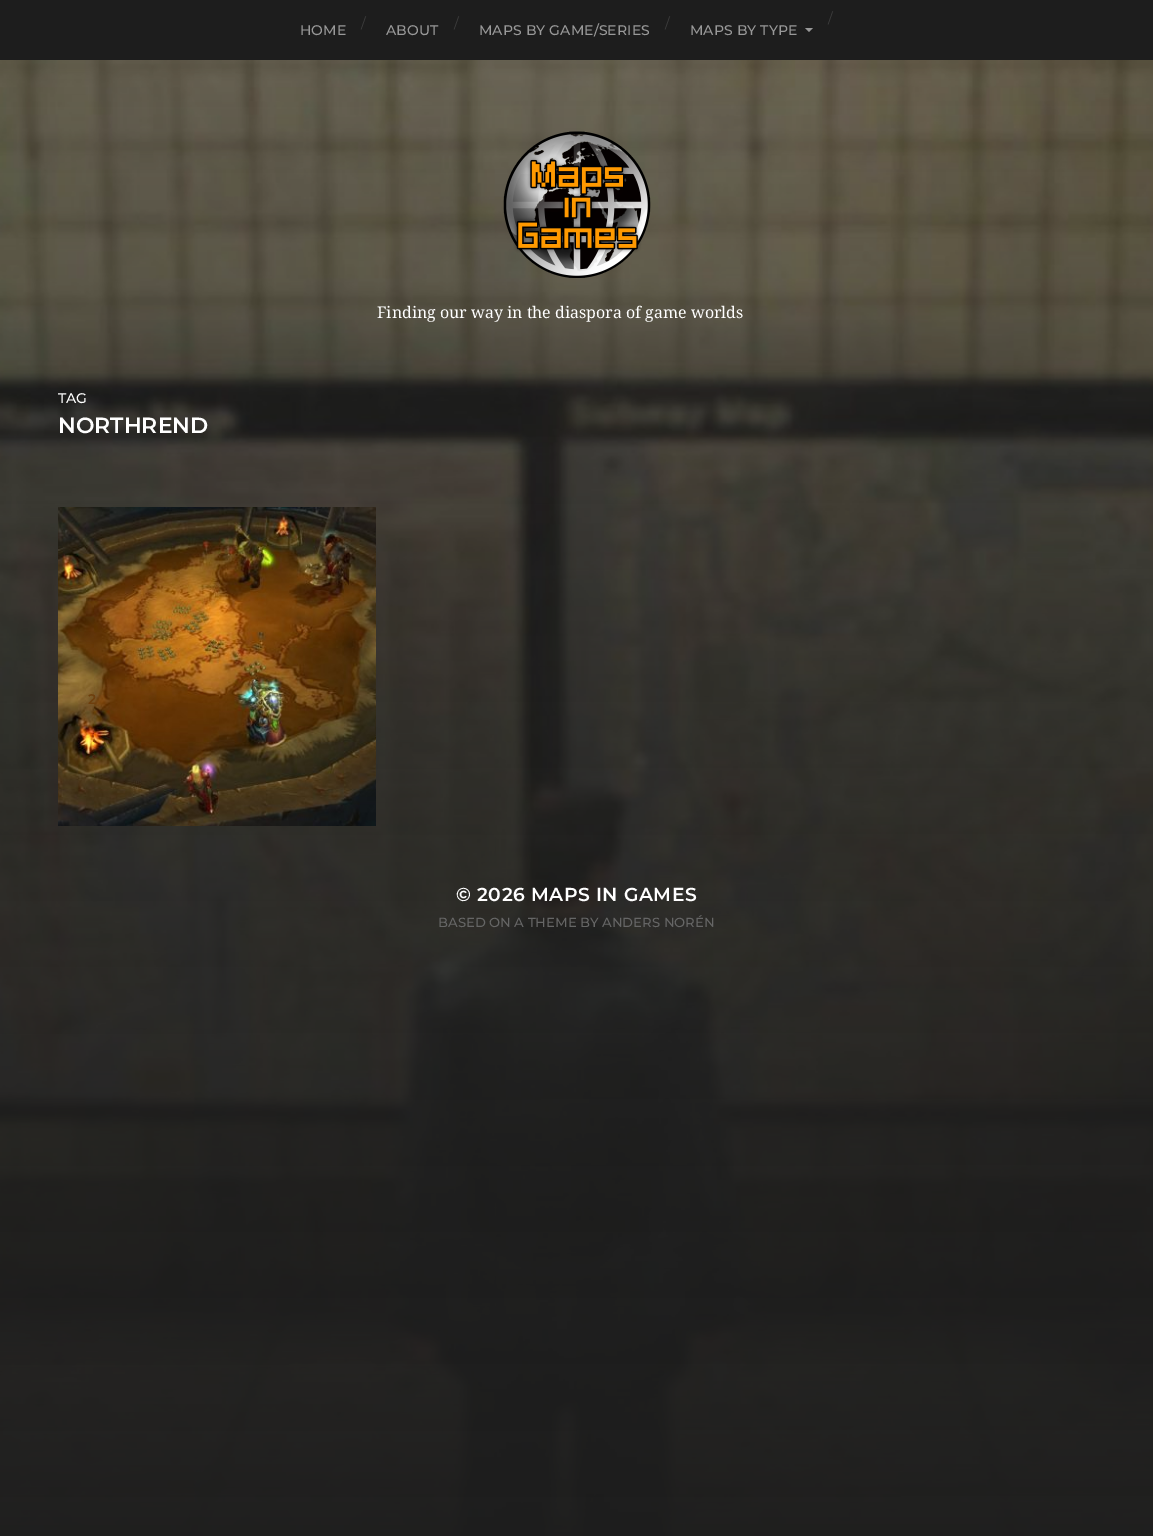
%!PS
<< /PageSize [1153 1536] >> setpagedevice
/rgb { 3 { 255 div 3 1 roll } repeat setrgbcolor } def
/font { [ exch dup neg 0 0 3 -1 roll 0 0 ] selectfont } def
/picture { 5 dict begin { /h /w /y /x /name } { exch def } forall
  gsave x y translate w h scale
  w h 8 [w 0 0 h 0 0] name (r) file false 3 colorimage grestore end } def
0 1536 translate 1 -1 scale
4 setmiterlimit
29 29 29 rgb
0 0 1153 1536 rectfill
153 153 153 rgb
805 28 moveto 813 28 lineto 809 32 lineto closepath fill
(img/1.rgb) 0 60 1153 1476 picture
(img/2.rgb) 503 131 148 147 picture
(img/3.rgb) 58 507 318 319 picture
/Montserrat-Medium 14 font
300 35 moveto 0.1 0 (HOME) ashow
/Montserrat-Regular 14 font
61 61 61 rgb
361 28 moveto (/) show
/Montserrat-Medium 14 font
153 153 153 rgb
386 35 moveto 0.1 0 (ABOUT) ashow
/Montserrat-Regular 14 font
61 61 61 rgb
454 28 moveto (/) show
/Montserrat-Medium 14 font
153 153 153 rgb
479 35 moveto 0.1 0 (MAPS BY GAME/SERIES) ashow
/Montserrat-Regular 14 font
61 61 61 rgb
665 28 moveto (/) show
/Montserrat-Medium 14 font
153 153 153 rgb
690 35 moveto 0.1 0 (MAPS BY TYPE) ashow
/Montserrat-Regular 14 font
61 61 61 rgb
828 23 moveto (/) show
/DroidSerif-Regular 16 font
255 255 255 rgb
377 318 moveto (Finding our way in the diaspora of game worlds) show
/Montserrat-Medium 14 font
58 403 moveto (TAG) show
/Montserrat-SemiBold 22 font
58 433 moveto (NORTHREND) show
/Montserrat-SemiBold 14 font
110 63 13 rgb
88 704 moveto (2) show
/Montserrat-SemiBold 18.75 font
255 255 255 rgb
456 901 moveto 0.5 0 (© 2026 MAPS IN GAMES) ashow
/Montserrat-Medium 13.2 font
102 102 102 rgb
438 927 moveto (BASED ON A THEME BY ANDERS NORÉN) show
showpage
